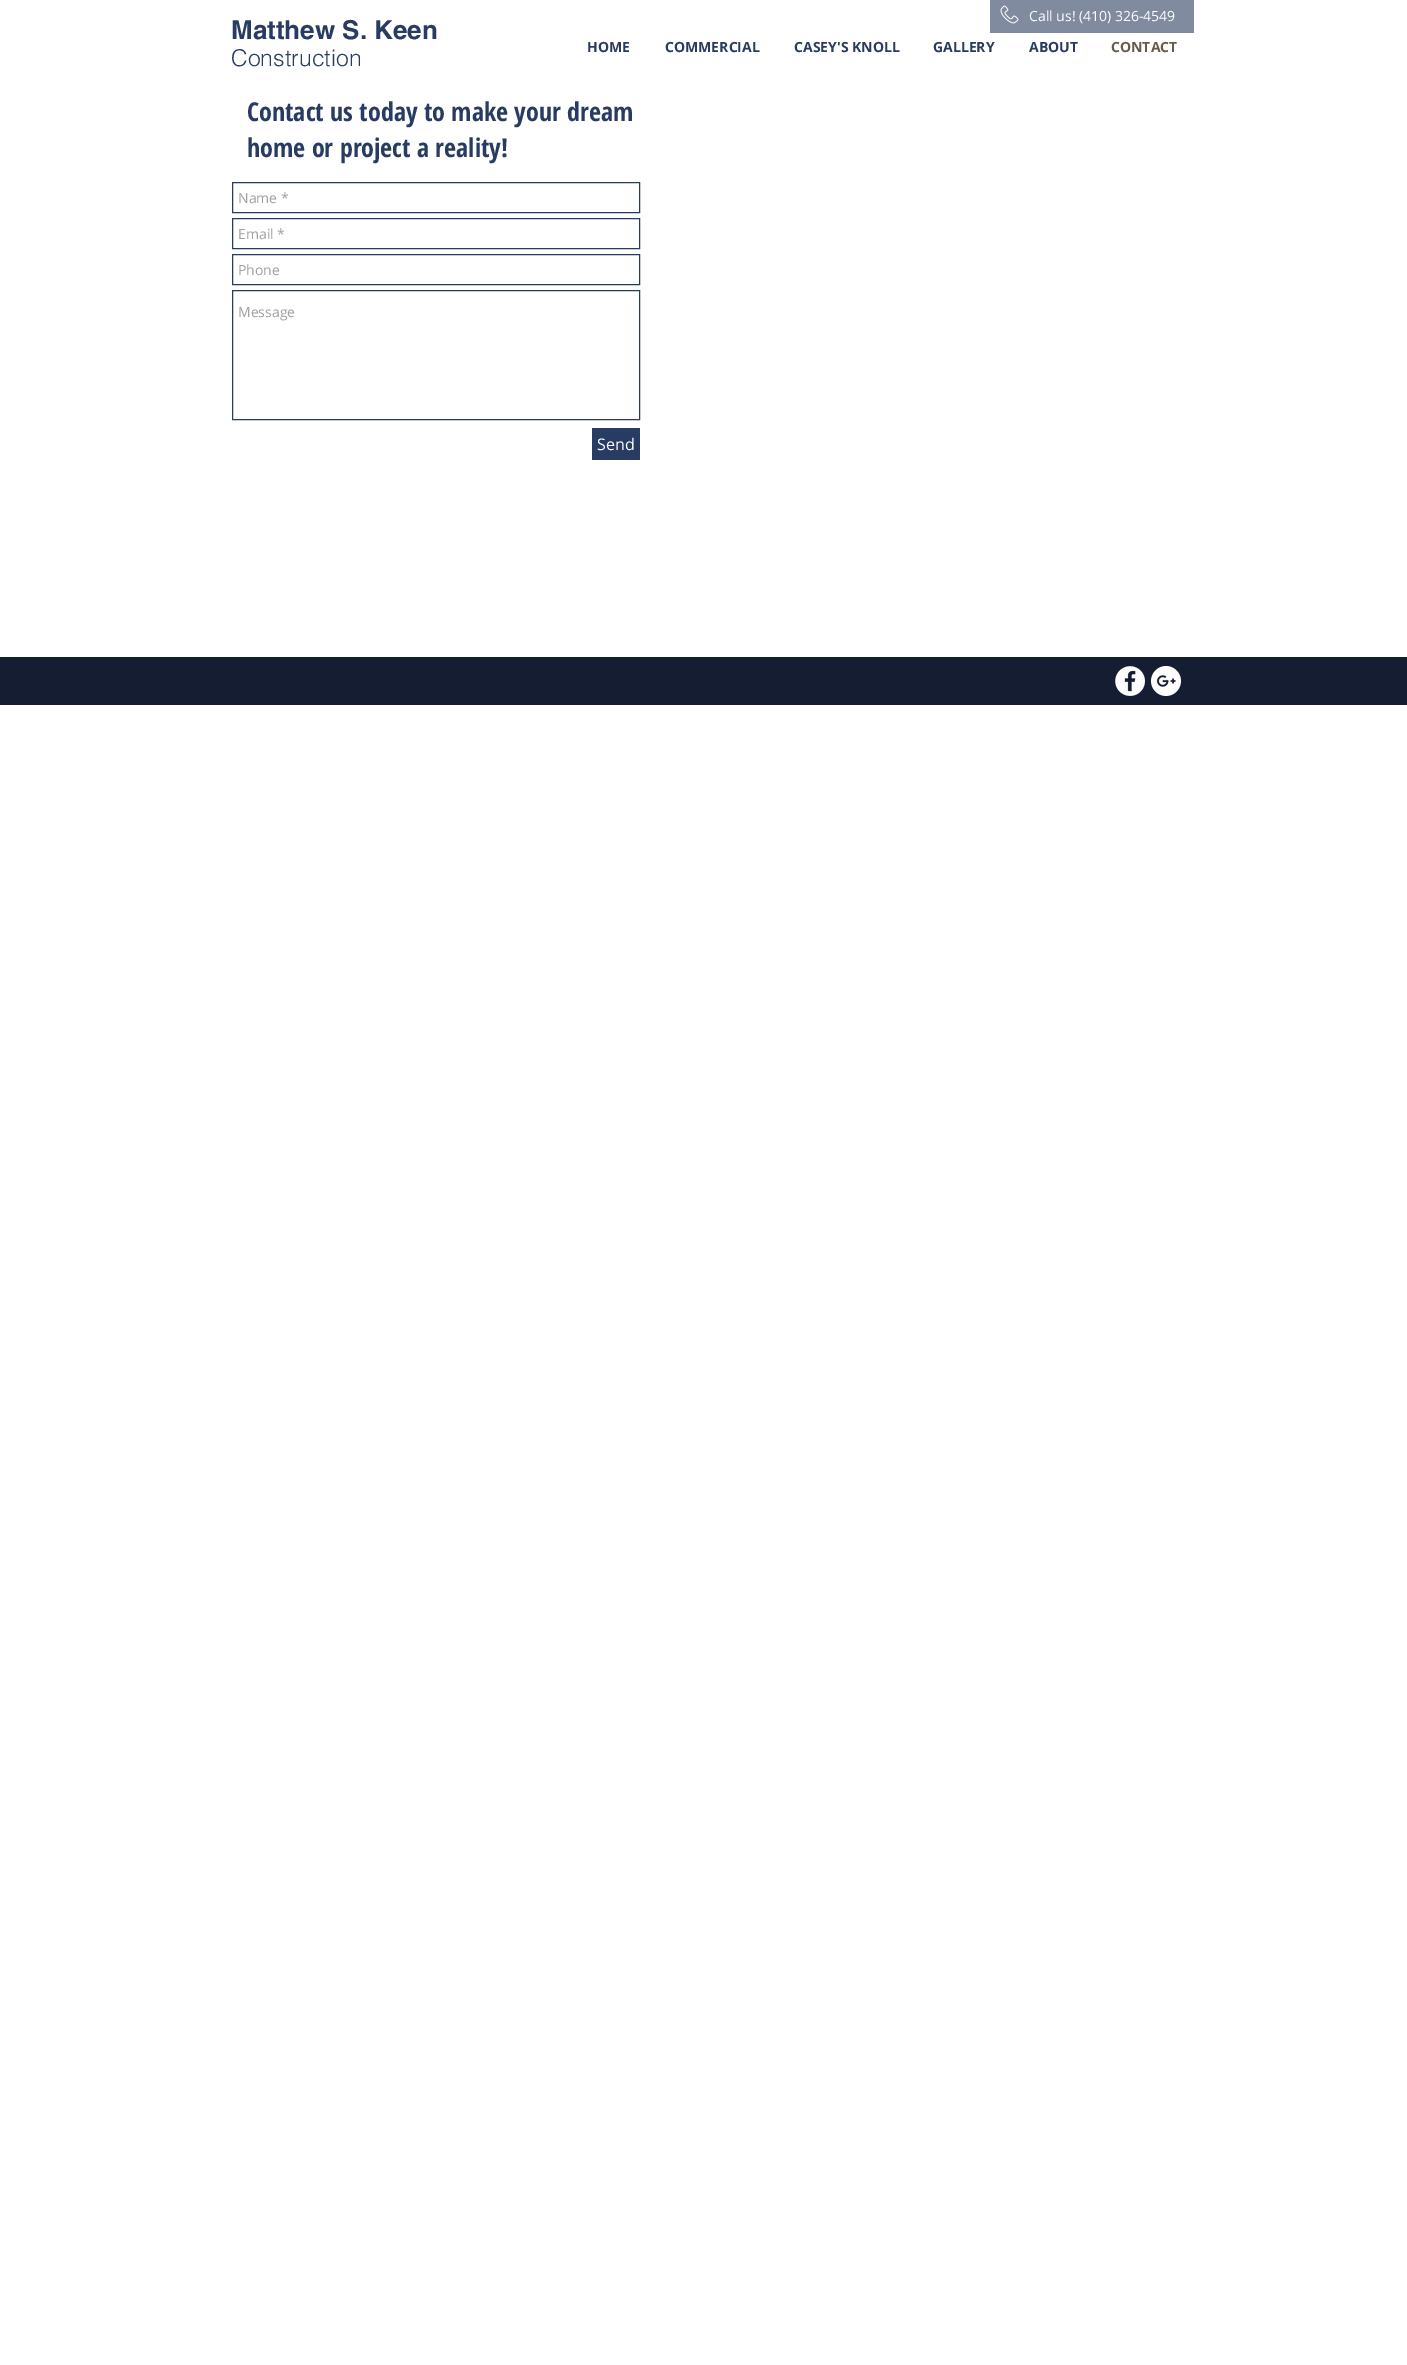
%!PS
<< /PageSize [1407 2365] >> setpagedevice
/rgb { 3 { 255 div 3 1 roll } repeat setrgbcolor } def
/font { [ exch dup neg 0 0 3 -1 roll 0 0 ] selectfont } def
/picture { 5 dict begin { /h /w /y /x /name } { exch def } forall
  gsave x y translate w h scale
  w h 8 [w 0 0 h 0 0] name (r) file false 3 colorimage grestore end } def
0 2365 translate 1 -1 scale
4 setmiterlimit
255 255 255 rgb
0 0 1407 2365 rectfill
129 139 159 rgb
990 0 204 33 rectfill
(img/1.rgb) 1000 5 19 19 picture
40 59 98 rgb
232.5 182.5 407 30 rectstroke
232.5 218.5 407 30 rectstroke
232.5 254.5 407 30 rectstroke
232.5 290.5 407 129 rectstroke
592 428 48 32 rectfill
20 29 49 rgb
0 657 1407 48 rectfill
(img/2.rgb) 1115 666 30 30 picture
(img/3.rgb) 1151 666 30 30 picture
/OpenSans-Regular 14 font
255 255 255 rgb
1029 21 moveto (Call us! \(410\) 326-4549) show
/helvetica-Bold 26 font
40 59 98 rgb
231 39 moveto (Matthew S. Keen) show
/helvetica-Light 23 font
231 66 moveto (Construction) show
/OpenSans-Bold 14 font
[
  [(HOME) 587 52]
  [(COMMERCIAL) 665 52]
  [(CASEY'S KNOLL) 794 52]
  [(GALLERY) 933 52]
  [(ABOUT) 1029 52]
] { aload pop moveto show } forall
102 90 73 rgb
1111 52 moveto (CONTACT) show
/OpenSansCondensed-Bold 26 font
40 59 98 rgb
247 121 moveto (Contact us today to make your dream) show
247 157 moveto (home or project a reality!) show
/OpenSans-Regular 14 font
160 160 159 rgb
[
  [(Name *) 238 203]
  [(Email *) 238 239]
  [(Phone) 238 275]
  [(Message) 238 317]
] { aload pop moveto show } forall
/OpenSans-Regular 16 font
255 255 255 rgb
597 450 moveto (Send) show
showpage
